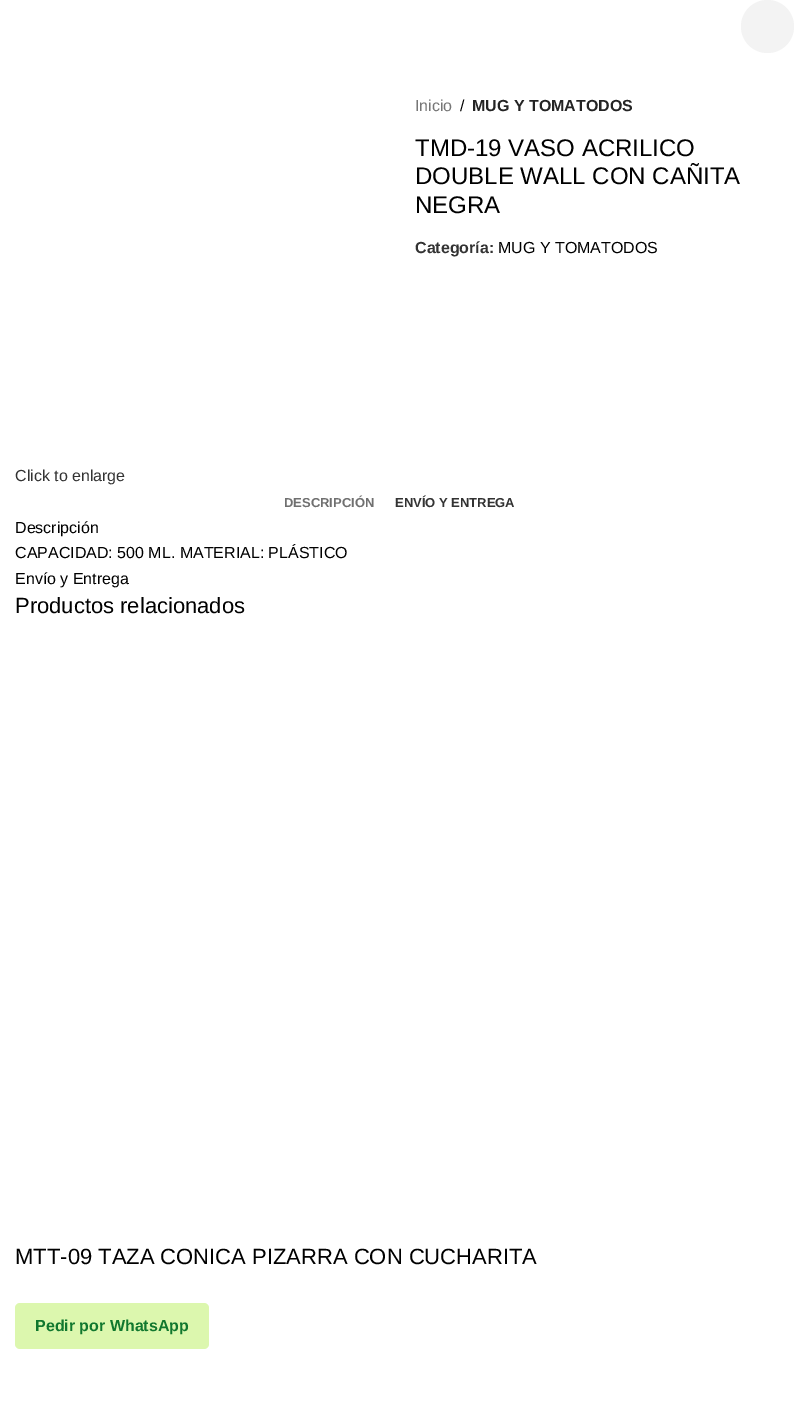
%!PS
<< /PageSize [799 1405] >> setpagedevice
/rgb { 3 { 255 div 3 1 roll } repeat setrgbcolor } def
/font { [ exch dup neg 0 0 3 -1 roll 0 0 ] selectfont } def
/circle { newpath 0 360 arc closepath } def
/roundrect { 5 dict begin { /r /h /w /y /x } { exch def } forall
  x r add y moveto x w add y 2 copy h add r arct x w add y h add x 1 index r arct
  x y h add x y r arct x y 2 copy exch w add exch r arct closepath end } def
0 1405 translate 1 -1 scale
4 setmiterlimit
255 255 255 rgb
0 0 799 1405 rectfill
243 243 243 rgb
767.5 26.5 26.5 circle fill
220 247 174 rgb
15 1303 194 46 5 roundrect fill
/LiberationSans-Regular 16 font
118 118 118 rgb
415 111 moveto (Inicio) show
0 0 0 rgb
460 111 moveto (/) show
/LiberationSans-Bold 16 font
36 36 36 rgb
472 111 moveto (MUG Y TOMATODOS) show
/LiberationSans-Regular 24 font
0 0 0 rgb
[
  [(TMD-19 VASO ACRILICO) 415 156]
  [(DOUBLE WALL CON CAÑITA) 415 184]
  [(NEGRA) 415 213]
] { aload pop moveto show } forall
/LiberationSans-Bold 16 font
51 51 51 rgb
415 253 moveto (Categoría:) show
/LiberationSans-Regular 16 font
0 0 0 rgb
498 253 moveto (MUG Y TOMATODOS) show
51 51 51 rgb
15 481 moveto (Click to enlarge) show
/LiberationSans-Bold 13 font
112 112 112 rgb
284 507 moveto (DESCRIPCIÓN) show
51 51 51 rgb
395 507 moveto (ENVÍO Y ENTREGA) show
/LiberationSans-Regular 16 font
0 0 0 rgb
[
  [(Descripción) 15 533]
  [(CAPACIDAD: 500 ML. MATERIAL: PLÁSTICO) 15 558]
  [(Envío y Entrega) 15 584]
] { aload pop moveto show } forall
/LiberationSans-Regular 22 font
15 613 moveto (Productos relacionados) show
15 1264 moveto (MTT-09 TAZA CONICA PIZARRA CON CUCHARITA) show
/LiberationSans-Bold 16 font
17 120 46 rgb
35 1331 moveto (Pedir por WhatsApp) show
showpage
